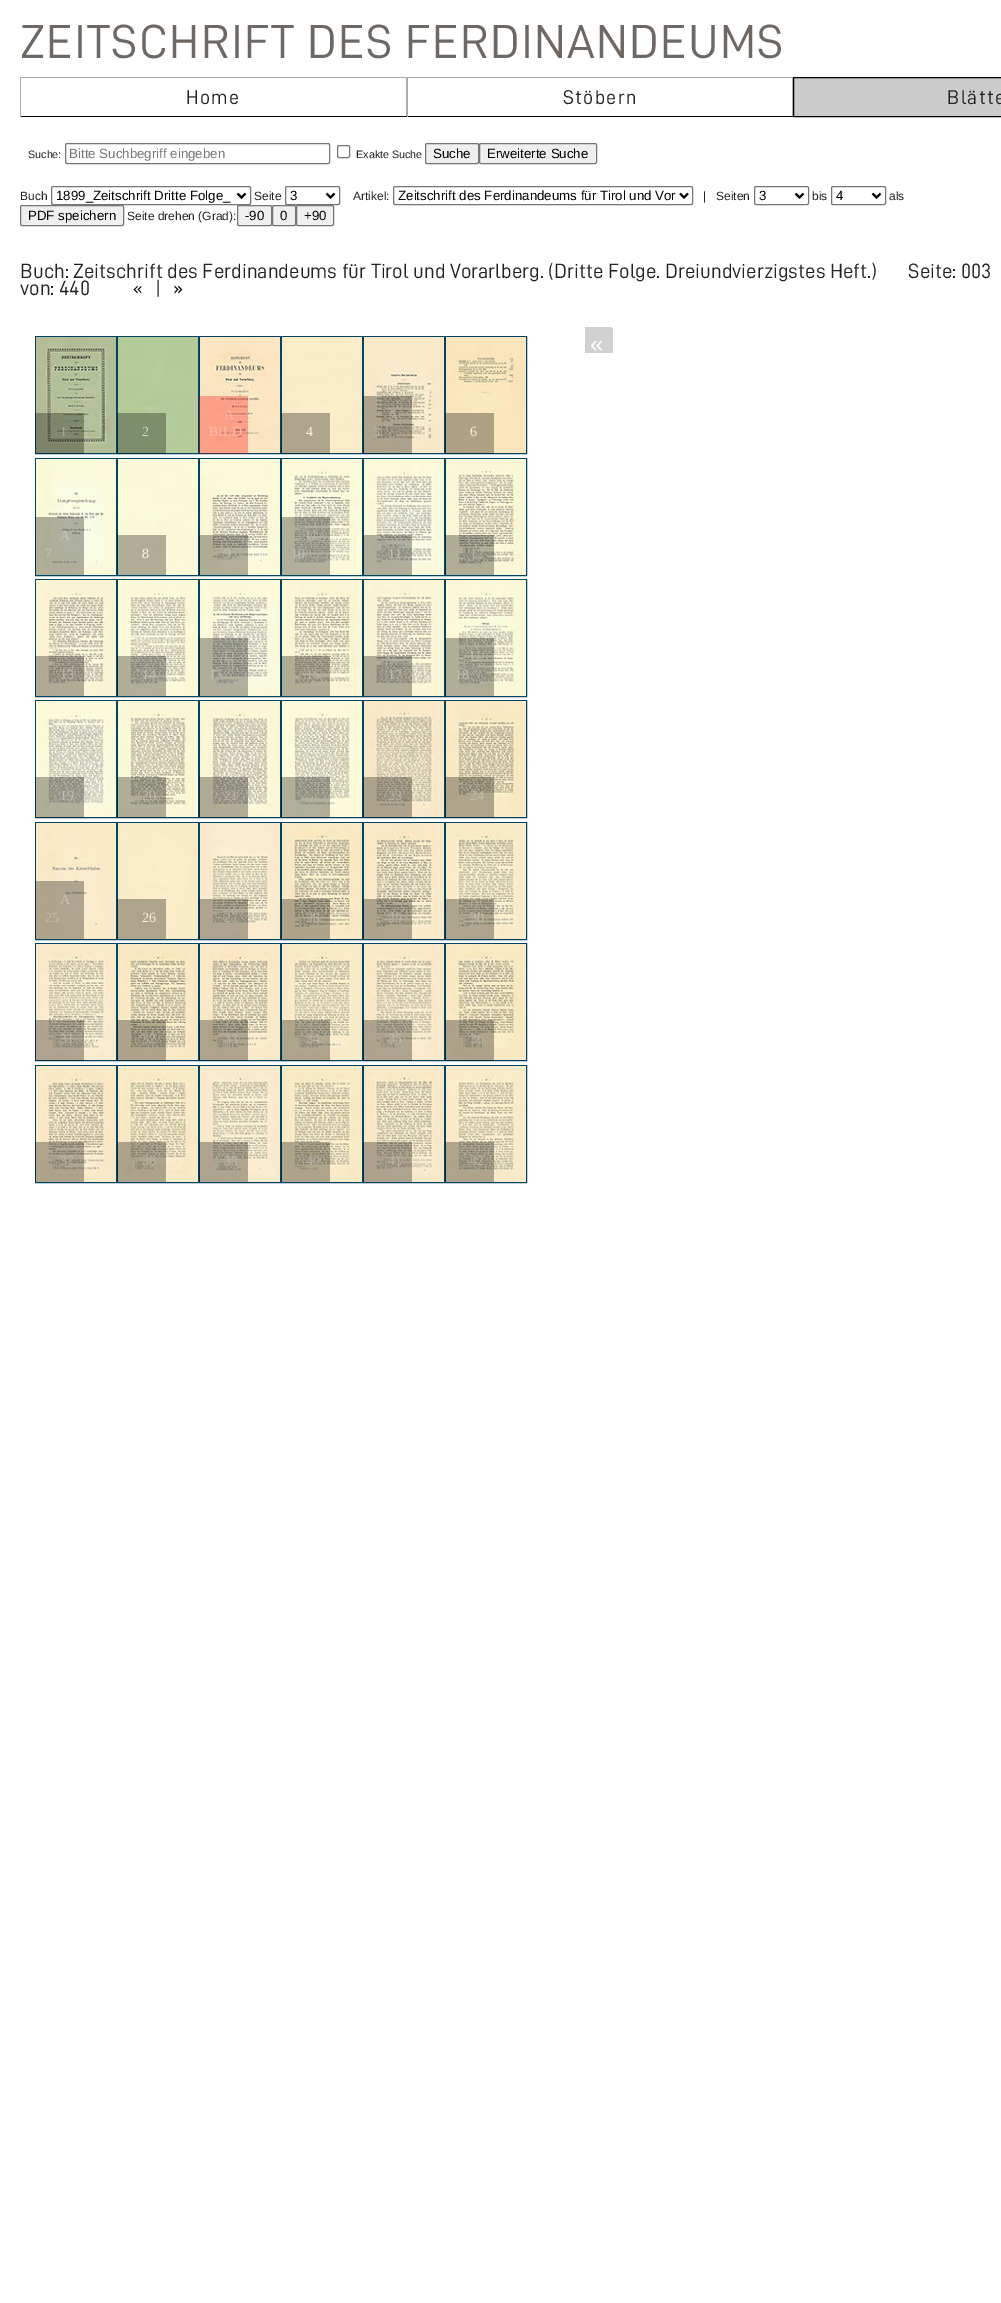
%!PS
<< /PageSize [1001 2303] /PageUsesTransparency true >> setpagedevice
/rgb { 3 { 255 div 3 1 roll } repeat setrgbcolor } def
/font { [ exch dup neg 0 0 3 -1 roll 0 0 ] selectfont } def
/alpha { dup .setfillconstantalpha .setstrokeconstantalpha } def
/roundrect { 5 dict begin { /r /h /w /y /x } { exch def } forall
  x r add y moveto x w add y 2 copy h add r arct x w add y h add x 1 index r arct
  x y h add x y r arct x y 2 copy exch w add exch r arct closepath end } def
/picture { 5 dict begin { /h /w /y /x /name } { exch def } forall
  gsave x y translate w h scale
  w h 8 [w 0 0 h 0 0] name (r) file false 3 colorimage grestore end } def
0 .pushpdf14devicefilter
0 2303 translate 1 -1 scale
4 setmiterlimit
255 255 255 rgb
0 0 1001 2303 rectfill
[
  [20 77 773 1 170 170 170]
  [406 77 1 40 170 170 170]
  [20 116 387 1 0 0 0]
  [20 77 1 40 170 170 170]
  [792 77 1 40 170 170 170]
  [407 116 386 1 0 0 0]
  [407 77 1 40 170 170 170]
] { aload pop rgb rectfill } forall
204 204 204 rgb
793.5 77.5 moveto 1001.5 77.5 lineto 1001.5 116.5 lineto 793.5 116.5 lineto closepath gsave fill grestore
0 0 0 rgb
stroke
118 118 118 rgb
65.5 143.5 264 20 1.5 roundrect stroke
337.5 145.5 12 12 1.5 roundrect stroke
239 239 239 rgb
425.5 143.5 53 20 1.5 roundrect gsave fill grestore
118 118 118 rgb
stroke
239 239 239 rgb
479.5 143.5 117 20 1.5 roundrect gsave fill grestore
118 118 118 rgb
stroke
754.5 186.5 54 18 1.5 roundrect stroke
0 0 0 rgb
2 setlinewidth
795.5 193.5 moveto 799.5 197.5 lineto 803.5 193.5 lineto stroke
118 118 118 rgb
1 setlinewidth
831.5 186.5 54 18 1.5 roundrect stroke
0 0 0 rgb
2 setlinewidth
872.5 193.5 moveto 876.5 197.5 lineto 880.5 193.5 lineto stroke
239 239 239 rgb
20.5 205.5 103 20 1.5 roundrect gsave fill grestore
118 118 118 rgb
1 setlinewidth
stroke
51.5 186.5 199 18 1.5 roundrect stroke
0 0 0 rgb
2 setlinewidth
237.5 193.5 moveto 241.5 197.5 lineto 245.5 193.5 lineto stroke
118 118 118 rgb
1 setlinewidth
285.5 186.5 54 18 1.5 roundrect stroke
0 0 0 rgb
2 setlinewidth
326.5 193.5 moveto 330.5 197.5 lineto 334.5 193.5 lineto stroke
118 118 118 rgb
1 setlinewidth
393.5 186.5 299 18 1.5 roundrect stroke
0 0 0 rgb
2 setlinewidth
680 193.5 moveto 684 197.5 lineto 688 193.5 lineto stroke
239 239 239 rgb
237.5 205.5 34 20 1.5 roundrect gsave fill grestore
118 118 118 rgb
1 setlinewidth
stroke
239 239 239 rgb
272.5 205.5 23 20 1.5 roundrect gsave fill grestore
118 118 118 rgb
stroke
239 239 239 rgb
296.5 205.5 37 20 1.5 roundrect gsave fill grestore
118 118 118 rgb
stroke
209 209 209 rgb
585 327 moveto 610 327 lineto 611.5 327 613 328.5 613 330 curveto 613 353 lineto 585 353 lineto closepath fill
0 68 97 rgb
35.5 336.5 81 117 rectstroke
(img/1.rgb) 36 337 80 116 picture
0.3 alpha
0 0 0 rgb
35 413 49 41 rectfill
1 alpha
0 68 97 rgb
117.5 336.5 81 117 rectstroke
(img/2.rgb) 118 337 80 116 picture
0.3 alpha
0 0 0 rgb
117 413 49 41 rectfill
1 alpha
0 68 97 rgb
199.5 336.5 81 117 rectstroke
(img/3.rgb) 200 337 80 116 picture
0.3 alpha
255 0 0 rgb
199 396 49 58 rectfill
1 alpha
0 68 97 rgb
281.5 336.5 81 117 rectstroke
(img/4.rgb) 282 337 80 116 picture
0.3 alpha
0 0 0 rgb
281 413 49 41 rectfill
1 alpha
0 68 97 rgb
363.5 336.5 81 117 rectstroke
(img/5.rgb) 364 337 80 116 picture
0.3 alpha
0 0 0 rgb
363 396 49 58 rectfill
1 alpha
0 68 97 rgb
445.5 336.5 81 117 rectstroke
(img/6.rgb) 446 337 80 116 picture
0.3 alpha
0 0 0 rgb
445 413 49 41 rectfill
1 alpha
0 68 97 rgb
35.5 458.5 81 117 rectstroke
(img/7.rgb) 36 459 80 116 picture
0.3 alpha
0 0 0 rgb
35 517 49 58 rectfill
1 alpha
0 68 97 rgb
117.5 458.5 81 117 rectstroke
(img/8.rgb) 118 459 80 116 picture
0.3 alpha
0 0 0 rgb
117 535 49 40 rectfill
1 alpha
0 68 97 rgb
199.5 458.5 81 117 rectstroke
(img/9.rgb) 200 459 80 116 picture
0.3 alpha
0 0 0 rgb
199 535 49 40 rectfill
1 alpha
0 68 97 rgb
281.5 458.5 81 117 rectstroke
(img/10.rgb) 282 459 80 116 picture
0.3 alpha
0 0 0 rgb
281 517 49 58 rectfill
1 alpha
0 68 97 rgb
363.5 458.5 81 117 rectstroke
(img/11.rgb) 364 459 80 116 picture
0.3 alpha
0 0 0 rgb
363 535 49 40 rectfill
1 alpha
0 68 97 rgb
445.5 458.5 81 117 rectstroke
(img/12.rgb) 446 459 80 116 picture
0.3 alpha
0 0 0 rgb
445 535 49 40 rectfill
1 alpha
0 68 97 rgb
35.5 579.5 81 117 rectstroke
(img/13.rgb) 36 580 80 116 picture
0.3 alpha
0 0 0 rgb
35 656 49 40 rectfill
1 alpha
0 68 97 rgb
117.5 579.5 81 117 rectstroke
(img/14.rgb) 118 580 80 116 picture
0.3 alpha
0 0 0 rgb
117 656 49 40 rectfill
1 alpha
0 68 97 rgb
199.5 579.5 81 117 rectstroke
(img/15.rgb) 200 580 80 116 picture
0.3 alpha
0 0 0 rgb
199 638 49 58 rectfill
1 alpha
0 68 97 rgb
281.5 579.5 81 117 rectstroke
(img/16.rgb) 282 580 80 116 picture
0.3 alpha
0 0 0 rgb
281 656 49 40 rectfill
1 alpha
0 68 97 rgb
363.5 579.5 81 117 rectstroke
(img/17.rgb) 364 580 80 116 picture
0.3 alpha
0 0 0 rgb
363 656 49 40 rectfill
1 alpha
0 68 97 rgb
445.5 579.5 81 117 rectstroke
(img/18.rgb) 446 580 80 116 picture
0.3 alpha
0 0 0 rgb
445 638 49 58 rectfill
1 alpha
0 68 97 rgb
35.5 700.5 81 117 rectstroke
(img/19.rgb) 36 701 80 116 picture
0.3 alpha
0 0 0 rgb
35 777 49 41 rectfill
1 alpha
0 68 97 rgb
117.5 700.5 81 117 rectstroke
(img/20.rgb) 118 701 80 116 picture
0.3 alpha
0 0 0 rgb
117 777 49 41 rectfill
1 alpha
0 68 97 rgb
199.5 700.5 81 117 rectstroke
(img/21.rgb) 200 701 80 116 picture
0.3 alpha
0 0 0 rgb
199 777 49 41 rectfill
1 alpha
0 68 97 rgb
281.5 700.5 81 117 rectstroke
(img/22.rgb) 282 701 80 116 picture
0.3 alpha
0 0 0 rgb
281 777 49 41 rectfill
1 alpha
0 68 97 rgb
363.5 700.5 81 117 rectstroke
(img/23.rgb) 364 701 80 116 picture
0.3 alpha
0 0 0 rgb
363 777 49 41 rectfill
1 alpha
0 68 97 rgb
445.5 700.5 81 117 rectstroke
(img/24.rgb) 446 701 80 116 picture
0.3 alpha
0 0 0 rgb
445 777 49 41 rectfill
1 alpha
0 68 97 rgb
35.5 822.5 81 117 rectstroke
(img/25.rgb) 36 823 80 116 picture
0.3 alpha
0 0 0 rgb
35 881 49 58 rectfill
1 alpha
0 68 97 rgb
117.5 822.5 81 117 rectstroke
(img/26.rgb) 118 823 80 116 picture
0.3 alpha
0 0 0 rgb
117 899 49 40 rectfill
1 alpha
0 68 97 rgb
199.5 822.5 81 117 rectstroke
(img/27.rgb) 200 823 80 116 picture
0.3 alpha
0 0 0 rgb
199 899 49 40 rectfill
1 alpha
0 68 97 rgb
281.5 822.5 81 117 rectstroke
(img/28.rgb) 282 823 80 116 picture
0.3 alpha
0 0 0 rgb
281 899 49 40 rectfill
1 alpha
0 68 97 rgb
363.5 822.5 81 117 rectstroke
(img/29.rgb) 364 823 80 116 picture
0.3 alpha
0 0 0 rgb
363 899 49 40 rectfill
1 alpha
0 68 97 rgb
445.5 822.5 81 117 rectstroke
(img/30.rgb) 446 823 80 116 picture
0.3 alpha
0 0 0 rgb
445 899 49 40 rectfill
1 alpha
0 68 97 rgb
35.5 943.5 81 117 rectstroke
(img/31.rgb) 36 944 80 116 picture
0.3 alpha
0 0 0 rgb
35 1020 49 41 rectfill
1 alpha
0 68 97 rgb
117.5 943.5 81 117 rectstroke
(img/32.rgb) 118 944 80 116 picture
0.3 alpha
0 0 0 rgb
117 1020 49 41 rectfill
1 alpha
0 68 97 rgb
199.5 943.5 81 117 rectstroke
(img/33.rgb) 200 944 80 116 picture
0.3 alpha
0 0 0 rgb
199 1020 49 41 rectfill
1 alpha
0 68 97 rgb
281.5 943.5 81 117 rectstroke
(img/34.rgb) 282 944 80 116 picture
0.3 alpha
0 0 0 rgb
281 1020 49 41 rectfill
1 alpha
0 68 97 rgb
363.5 943.5 81 117 rectstroke
(img/35.rgb) 364 944 80 116 picture
0.3 alpha
0 0 0 rgb
363 1020 49 41 rectfill
1 alpha
0 68 97 rgb
445.5 943.5 81 117 rectstroke
(img/36.rgb) 446 944 80 116 picture
0.3 alpha
0 0 0 rgb
445 1020 49 41 rectfill
1 alpha
0 68 97 rgb
35.5 1065.5 81 117 rectstroke
(img/37.rgb) 36 1066 80 116 picture
0.3 alpha
0 0 0 rgb
35 1142 49 40 rectfill
1 alpha
0 68 97 rgb
117.5 1065.5 81 117 rectstroke
(img/38.rgb) 118 1066 80 116 picture
0.3 alpha
0 0 0 rgb
117 1142 49 40 rectfill
1 alpha
0 68 97 rgb
199.5 1065.5 81 117 rectstroke
(img/39.rgb) 200 1066 80 116 picture
0.3 alpha
0 0 0 rgb
199 1142 49 40 rectfill
1 alpha
0 68 97 rgb
281.5 1065.5 81 117 rectstroke
(img/40.rgb) 282 1066 80 116 picture
0.3 alpha
0 0 0 rgb
281 1142 49 40 rectfill
1 alpha
0 68 97 rgb
363.5 1065.5 81 117 rectstroke
(img/41.rgb) 364 1066 80 116 picture
0.3 alpha
0 0 0 rgb
363 1142 49 40 rectfill
1 alpha
0 68 97 rgb
445.5 1065.5 81 117 rectstroke
(img/42.rgb) 446 1066 80 116 picture
0.3 alpha
0 0 0 rgb
445 1142 49 40 rectfill
/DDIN-Regular 48 font
1 alpha
109 104 99 rgb
20 58 moveto 1.3 0 (ZEITSCHRIFT DES FERDINANDEUMS) ashow
/DDIN-Regular 20 font
34 34 34 rgb
186 104 moveto 1.3 0 (Home) ashow
563 104 moveto 1.3 0 (Stöbern) ashow
947 104 moveto 1.3 0 (Blätte) ashow
/LiberationSans-Regular 10.75 font
28 158 moveto (Suche:) show
/LiberationSans-Regular 13.3 font
117 117 117 rgb
69 158 moveto (Bitte Suchbegriff eingeben) show
/LiberationSans-Regular 10.75 font
34 34 34 rgb
356 158 moveto (Exakte Suche) show
/LiberationSans-Regular 13.3 font
0 0 0 rgb
433 158 moveto (Suche) show
487 158 moveto (Erweiterte Suche) show
/LiberationSans-Regular 12 font
34 34 34 rgb
716 200 moveto (Seiten) show
/LiberationSans-Regular 13.3 font
0 0 0 rgb
759 200 moveto (3) show
/LiberationSans-Regular 12 font
34 34 34 rgb
812 200 moveto (bis) show
/LiberationSans-Regular 13.3 font
0 0 0 rgb
836 200 moveto (4) show
/LiberationSans-Regular 12 font
34 34 34 rgb
889 200 moveto (als) show
/LiberationSans-Regular 13.3 font
0 0 0 rgb
28 220 moveto (PDF speichern) show
/LiberationSans-Regular 12 font
34 34 34 rgb
20 200 moveto (Buch) show
/LiberationSans-Regular 13.3 font
0 0 0 rgb
56 200 moveto (1899_Zeitschrift Dritte Folge_) show
/LiberationSans-Regular 12 font
34 34 34 rgb
254 200 moveto (Seite) show
/LiberationSans-Regular 13.3 font
0 0 0 rgb
290 200 moveto (3) show
/LiberationSans-Regular 12 font
34 34 34 rgb
353 200 moveto (Artikel:) show
/LiberationSans-Regular 13.3 font
0 0 0 rgb
398 200 moveto (Zeitschrift des Ferdinandeums für Tirol und Vor) show
/LiberationSans-Regular 12 font
34 34 34 rgb
703 200 moveto (|) show
127 220 moveto (Seite drehen \(Grad\):) show
/LiberationSans-Regular 13.3 font
0 0 0 rgb
[
  [(-90) 245 220]
  [(0) 280 220]
  [(+90) 304 220]
] { aload pop moveto show } forall
/DDIN-Regular 20.75 font
34 34 34 rgb
20 278 moveto (Buch: Zeitschrift des Ferdinandeums für Tirol und Vorarlberg. \(Dritte Folge. Dreiundvierzigstes Heft.\)       Seite: 003) show
20 295 moveto (von: 440) show
0 0 0 rgb
133 295 moveto («) show
34 34 34 rgb
155 295 moveto (|) show
0 0 0 rgb
173 295 moveto (») show
/LiberationSans-Regular 24 font
255 255 255 rgb
590 352 moveto («) show
/LiberationSerif-Regular 14 font
162 168 150 rgb
60 436 moveto (1) show
203 218 184 rgb
142 436 moveto (2) show
249 186 170 rgb
224 419 moveto (A) show
209 436 moveto (BILD) show
252 242 217 rgb
306 436 moveto (4) show
182 178 165 rgb
388 419 moveto (A) show
189 182 168 rgb
373 436 moveto (5) show
252 238 209 rgb
470 436 moveto (6) show
198 199 187 rgb
60 540 moveto (A) show
45 558 moveto (7) show
252 250 227 rgb
142 558 moveto (8) show
192 191 179 rgb
[
  [(9) 224 558]
  [(U) 306 540]
  [(10) 291 558]
] { aload pop moveto show } forall
186 186 177 rgb
388 558 moveto (11) show
182 178 165 rgb
470 558 moveto (12) show
189 182 168 rgb
60 679 moveto (13) show
192 191 179 rgb
142 679 moveto (14) show
186 186 177 rgb
224 661 moveto (U) show
192 191 179 rgb
209 679 moveto (15) show
189 182 168 rgb
306 679 moveto (16) show
186 186 177 rgb
388 679 moveto (17) show
192 191 179 rgb
470 661 moveto (U) show
455 679 moveto (18) show
186 186 177 rgb
60 800 moveto (19) show
189 182 168 rgb
142 800 moveto (20) show
182 178 165 rgb
224 800 moveto (21) show
388 800 moveto (23) show
194 188 171 rgb
470 800 moveto (24) show
199 192 177 rgb
60 904 moveto (A) show
194 188 171 rgb
45 922 moveto (25) show
252 242 217 rgb
142 922 moveto (26) show
182 178 165 rgb
[
  [(27) 224 922]
  [(28) 306 922]
  [(29) 388 922]
] { aload pop moveto show } forall
194 188 171 rgb
470 922 moveto (30) show
189 182 168 rgb
60 1043 moveto (31) show
182 178 165 rgb
142 1043 moveto (32) show
189 182 168 rgb
224 1043 moveto (33) show
306 1043 moveto (34) show
192 191 179 rgb
388 1043 moveto (35) show
189 182 168 rgb
[
  [(36) 470 1043]
  [(37) 60 1165]
  [(38) 142 1165]
  [(39) 224 1165]
] { aload pop moveto show } forall
182 178 165 rgb
306 1165 moveto (40) show
189 182 168 rgb
388 1165 moveto (41) show
182 178 165 rgb
470 1165 moveto (42) show
.poppdf14devicefilter showpage
